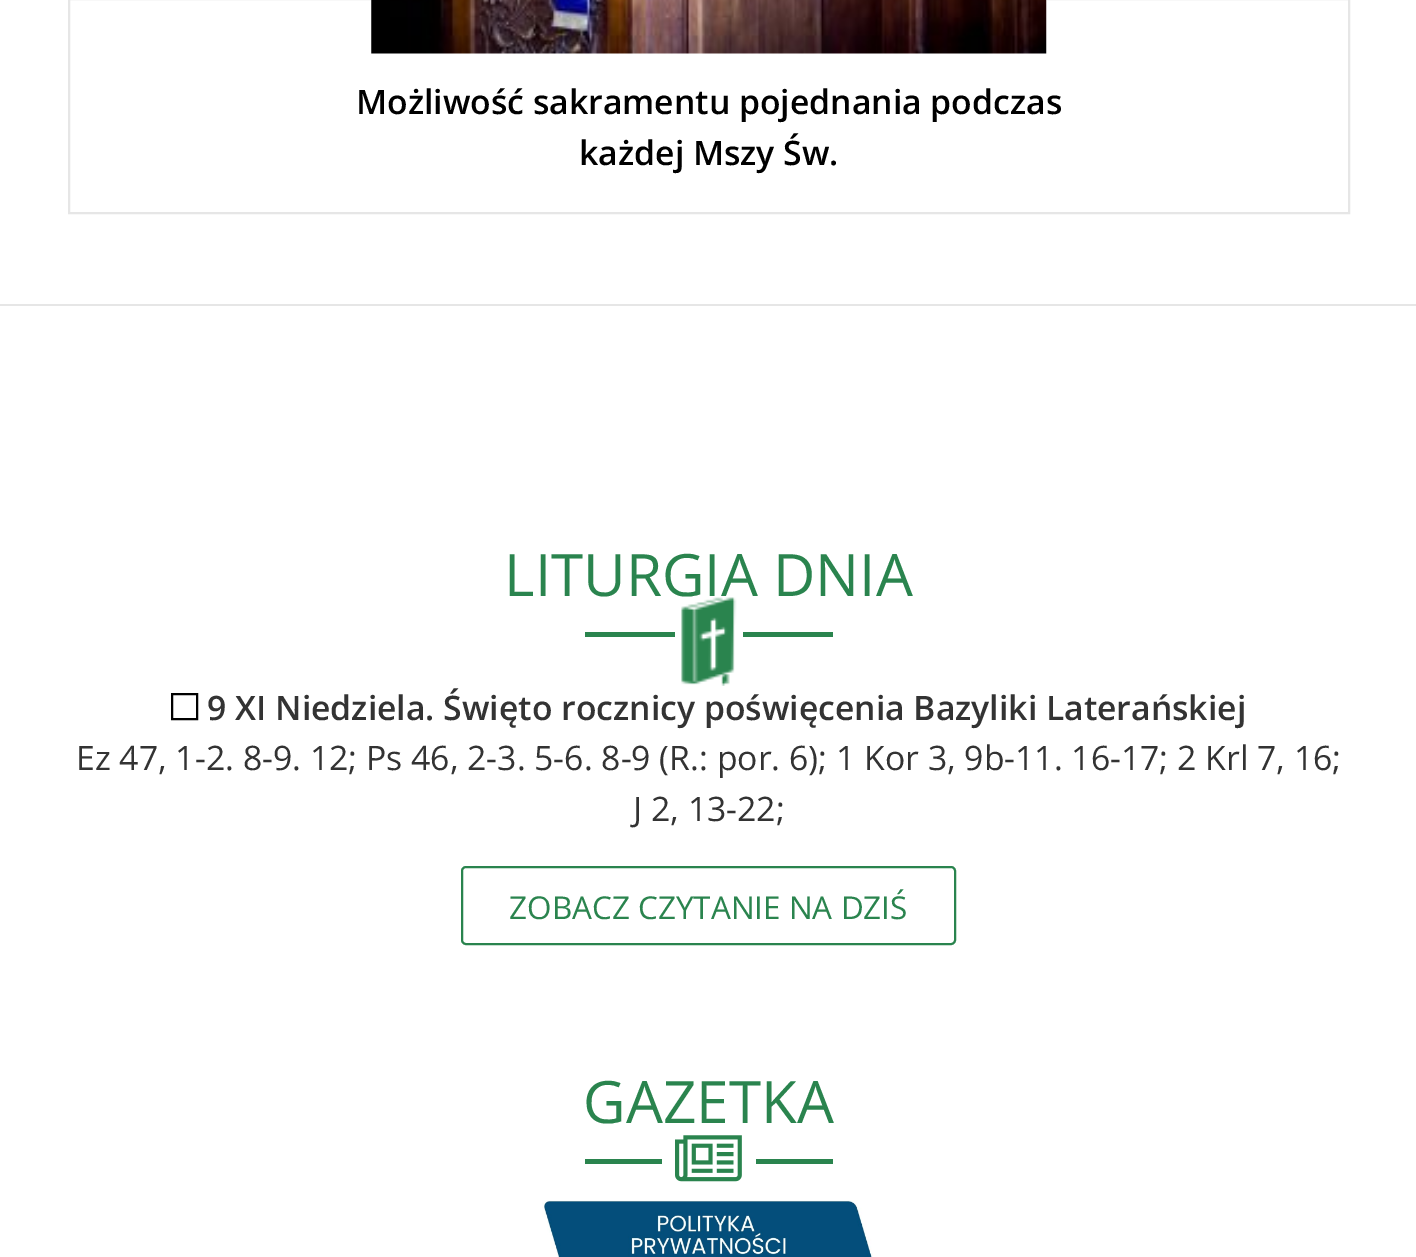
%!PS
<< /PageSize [1416 1257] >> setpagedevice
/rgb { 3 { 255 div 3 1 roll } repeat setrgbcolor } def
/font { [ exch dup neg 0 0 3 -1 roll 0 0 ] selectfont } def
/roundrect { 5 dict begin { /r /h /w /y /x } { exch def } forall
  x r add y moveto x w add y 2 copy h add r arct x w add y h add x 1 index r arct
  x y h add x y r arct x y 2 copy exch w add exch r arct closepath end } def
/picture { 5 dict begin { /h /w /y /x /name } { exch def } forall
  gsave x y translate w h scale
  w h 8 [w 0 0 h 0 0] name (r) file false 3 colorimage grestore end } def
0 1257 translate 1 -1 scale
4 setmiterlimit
255 255 255 rgb
0 0 1416 1257 rectfill
230 230 230 rgb
2 setlinewidth
69 -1 1280 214 rectstroke
(img/1.rgb) 371 0 676 54 picture
[
  [0 304 1416 2 230 230 230]
  [585 632 248 5 42 132 78]
  [675 632 68 5 255 255 255]
] { aload pop rgb rectfill } forall
(img/2.rgb) 681 597 56 89 picture
0 0 0 rgb
172 694 25 25 rectstroke
42 132 78 rgb
462 867 493 77 4 roundrect stroke
585 1159 248 5 rectfill
255 255 255 rgb
662 1159 94 5 rectfill
(img/3.rgb) 675 1135 67 47 picture
(img/4.rgb) 542 1200 331 57 picture
/OpenSans-SemiBold 33.75 font
0 0 0 rgb
356 114 moveto (Możliwość sakramentu pojednania podczas) show
579 165 moveto (każdej Mszy Św.) show
/OpenSans-Regular 58.5 font
42 132 78 rgb
504 596 moveto (LITURGIA DNIA) show
/OpenSans-SemiBold 33.75 font
51 51 51 rgb
207 720 moveto (9 XI Niedziela. Święto rocznicy poświęcenia Bazyliki Laterańskiej) show
/OpenSans-Regular 33.75 font
76 770 moveto (Ez 47, 1-2. 8-9. 12; Ps 46, 2-3. 5-6. 8-9 \(R.: por. 6\); 1 Kor 3, 9b-11. 16-17; 2 Krl 7, 16;) show
633 821 moveto (J 2, 13-22;) show
/OpenSans-Regular 31.5 font
42 132 78 rgb
509 919 moveto (ZOBACZ CZYTANIE NA DZIŚ) show
/OpenSans-Regular 58.5 font
583 1123 moveto (GAZETKA) show
showpage
